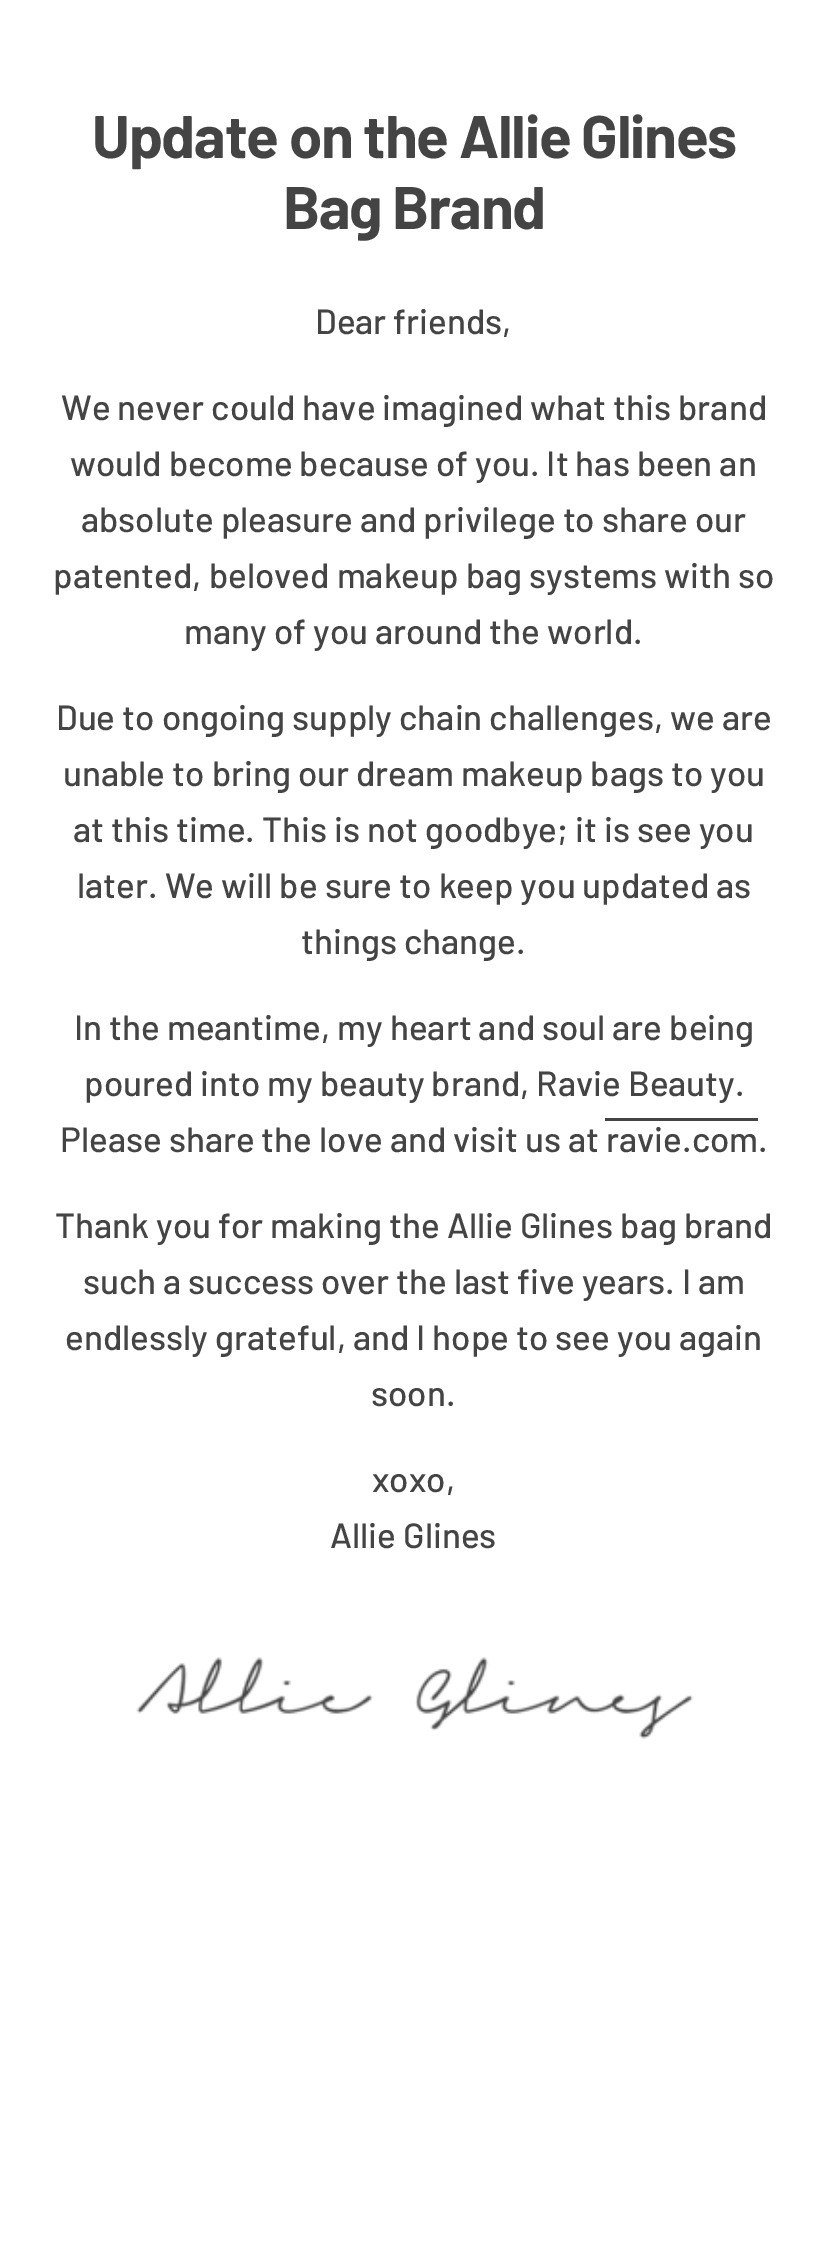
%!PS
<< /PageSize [827 2242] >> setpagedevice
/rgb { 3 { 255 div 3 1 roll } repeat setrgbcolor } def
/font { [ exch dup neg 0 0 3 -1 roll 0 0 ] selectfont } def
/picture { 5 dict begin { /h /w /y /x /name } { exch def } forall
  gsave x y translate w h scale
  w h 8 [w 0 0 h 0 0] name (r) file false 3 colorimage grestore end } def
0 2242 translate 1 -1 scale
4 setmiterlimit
255 255 255 rgb
0 0 827 2242 rectfill
68 68 68 rgb
605 1118 153 3 rectfill
(img/1.rgb) 136 1657 558 82 picture
/Barlow-Bold 60 font
92 158 moveto -1.2 0 (Update on the Allie Glines) ashow
283 229 moveto -1.2 0 (Bag Brand) ashow
/Barlow-Medium 35 font
[
  [(Dear friends,) 315 334]
  [(We never could have imagined what this brand) 61 420]
  [(would become because of you. It has been an) 70 476]
  [(absolute pleasure and privilege to share our) 81 532]
  [(patented, beloved makeup bag systems with so) 53 588]
  [(many of you around the world.) 184 644]
  [(Due to ongoing supply chain challenges, we are) 56 730]
  [(unable to bring our dream makeup bags to you) 63 786]
  [(at this time. This is not goodbye; it is see you) 73 842]
  [(later. We will be sure to keep you updated as) 77 898]
  [(things change.) 301 954]
  [(In the meantime, my heart and soul are being) 74 1040]
  [(poured into my beauty brand, Ravie Beauty.) 84 1096]
  [(Please share the love and visit us at ravie.com.) 60 1152]
  [(Thank you for making the Allie Glines bag brand) 55 1238]
  [(such a success over the last five years. I am) 83 1294]
  [(endlessly grateful, and I hope to see you again) 65 1350]
  [(soon.) 371 1406]
  [(xoxo,) 372 1492]
  [(Allie Glines) 330 1548]
] { aload pop moveto show } forall
showpage
